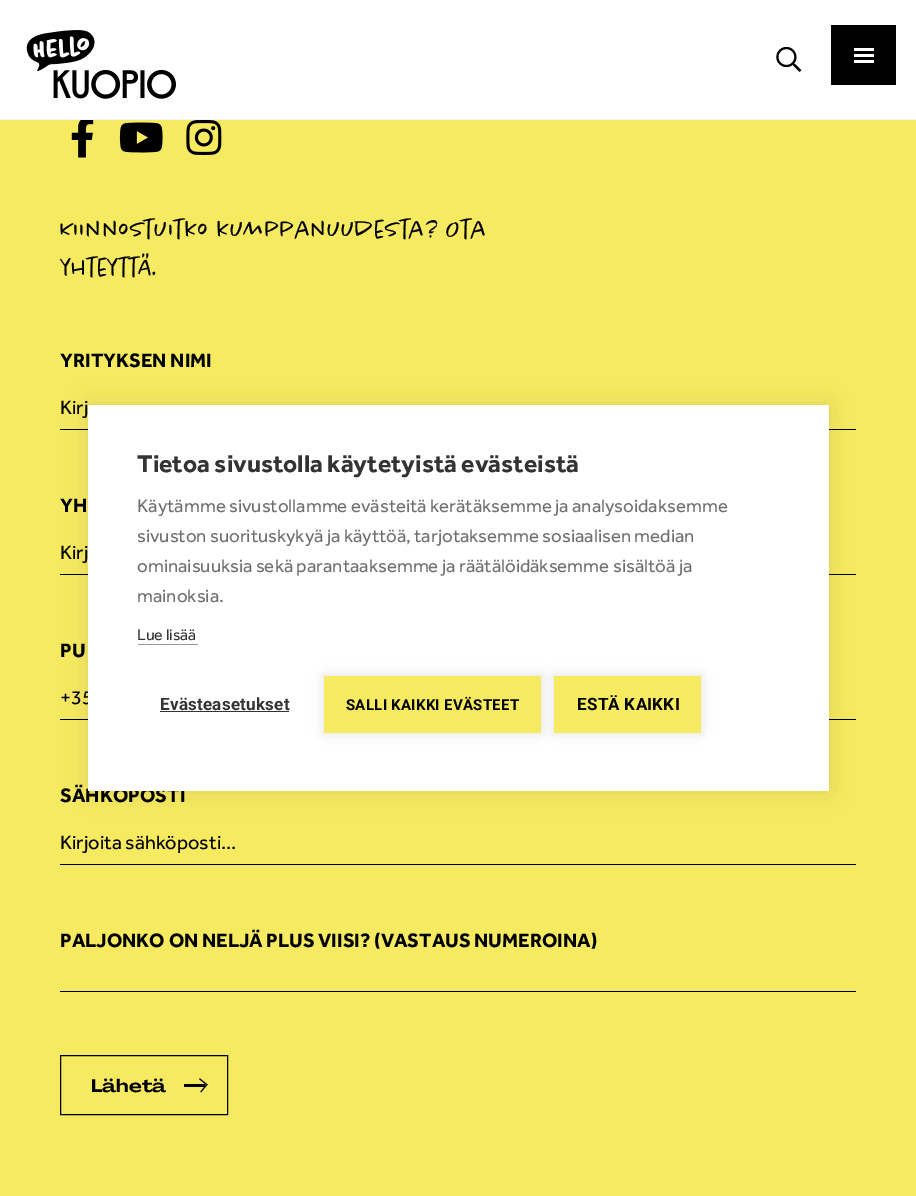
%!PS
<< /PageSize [916 1196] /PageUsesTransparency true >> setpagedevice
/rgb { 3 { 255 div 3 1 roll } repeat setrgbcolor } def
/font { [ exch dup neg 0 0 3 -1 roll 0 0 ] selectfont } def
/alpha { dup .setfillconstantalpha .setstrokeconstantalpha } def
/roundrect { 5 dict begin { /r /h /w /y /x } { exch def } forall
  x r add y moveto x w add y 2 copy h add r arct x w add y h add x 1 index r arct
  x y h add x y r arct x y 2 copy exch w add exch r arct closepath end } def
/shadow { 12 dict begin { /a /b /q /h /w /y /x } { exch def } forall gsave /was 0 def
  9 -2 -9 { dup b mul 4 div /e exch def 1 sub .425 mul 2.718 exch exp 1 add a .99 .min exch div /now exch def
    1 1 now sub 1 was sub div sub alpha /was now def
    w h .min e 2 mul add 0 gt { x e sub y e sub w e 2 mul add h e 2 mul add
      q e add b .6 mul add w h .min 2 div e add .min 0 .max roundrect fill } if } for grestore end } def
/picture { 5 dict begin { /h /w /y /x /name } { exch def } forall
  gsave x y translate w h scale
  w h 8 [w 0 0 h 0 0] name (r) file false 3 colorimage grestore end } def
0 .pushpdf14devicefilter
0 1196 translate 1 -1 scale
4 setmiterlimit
246 234 96 rgb
0 0 916 1196 rectfill
255 255 255 rgb
0 0 916 119 rectfill
244 244 244 rgb
0 119 916 1 rectfill
(img/1.rgb) 26 30 150 69 picture
(img/2.rgb) 776 46 26 26 picture
[
  [831 25 65 60 0 0 0]
  [854 48 20 3 255 255 255]
  [854 54 20 3 255 255 255]
  [854 60 20 3 255 255 255]
] { aload pop rgb rectfill } forall
(img/3.rgb) 71 120 23 38 picture
(img/4.rgb) 119 122 44 31 picture
(img/5.rgb) 186 120 36 35 picture
[
  [60 429 796 1 0 0 0]
  [60 574 796 1 0 0 0]
  [60 719 796 1 0 0 0]
  [60 864 796 1 0 0 0]
  [60 991 796 1 0 0 0]
] { aload pop rgb rectfill } forall
200 1078.5 moveto 207.5 1084.5 lineto 207 1085.5 lineto 199 1079 lineto closepath fill
206.5 1084 moveto 207.5 1084.5 lineto 201 1092.5 lineto 200.5 1091.5 lineto closepath fill
60.5 1055.5 167 59 rectstroke
184 1084 21 3 rectfill
88 405 741 386 0 12.5 0.1 shadow
/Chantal-Light 25 font
60 238 moveto (Kiinnostuitko kumppanuudesta? Ota) show
60 276 moveto (yhteyttä.) show
/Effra-Bold 20 font
60 367 moveto (YRITYKSEN NIMI) show
/Effra-Regular 20 font
60 414 moveto (Kirj) show
/Effra-Bold 20 font
60 512 moveto (YH) show
/Effra-Regular 20 font
60 559 moveto (Kirj) show
/Effra-Bold 20 font
60 657 moveto (PU) show
/Effra-Regular 20 font
60 704 moveto (+35) show
/Effra-Bold 20 font
60 802 moveto (SÄHKÖPOSTI) show
/Effra-Regular 20 font
60 849 moveto (Kirjoita sähköposti...) show
/Effra-Bold 20 font
60 947 moveto (PALJONKO ON NELJÄ PLUS VIISI? \(VASTAUS NUMEROINA\)) show
/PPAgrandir-Bold 18 font
91 1092 moveto (Lähetä) show
255 255 255 rgb
88 405 741 386 rectfill
/Effra-Bold 25 font
51 51 51 rgb
137 472 moveto (Tietoa sivustolla käytetyistä evästeistä) show
/Effra-Regular 18.75 font
112 112 112 rgb
[
  [(Käytämme sivustollamme evästeitä kerätäksemme ja analysoidaksemme) 137 512]
  [(sivuston suorituskykyä ja käyttöä, tarjotaksemme sosiaalisen median) 137 542]
  [(ominaisuuksia sekä parantaaksemme ja räätälöidäksemme sisältöä ja) 137 572]
  [(mainoksia.) 137 602]
] { aload pop moveto show } forall
/Effra-Regular 16 font
51 51 51 rgb
137 640 moveto (Lue lisää) show
153 153 153 rgb
138 644 60 1 rectfill
/Roboto-Bold 17 font
51 51 51 rgb
160 710 moveto 0.25 0 (Evästeasetukset) ashow
160 711 129 1 rectfill
0 0 0 rgb
324 676 217 57 0 6 0.12 shadow
246 234 96 rgb
324 676 217 57 rectfill
/Roboto-Bold 15 font
0 0 0 rgb
346 710 moveto 0.25 0 (SALLI KAIKKI EVÄSTEET) ashow
554 676 147 57 0 6 0.12 shadow
246 234 96 rgb
554 676 147 57 rectfill
/Roboto-Bold 17 font
0 0 0 rgb
577 710 moveto 0.25 0 (ESTÄ KAIKKI) ashow
.poppdf14devicefilter showpage
